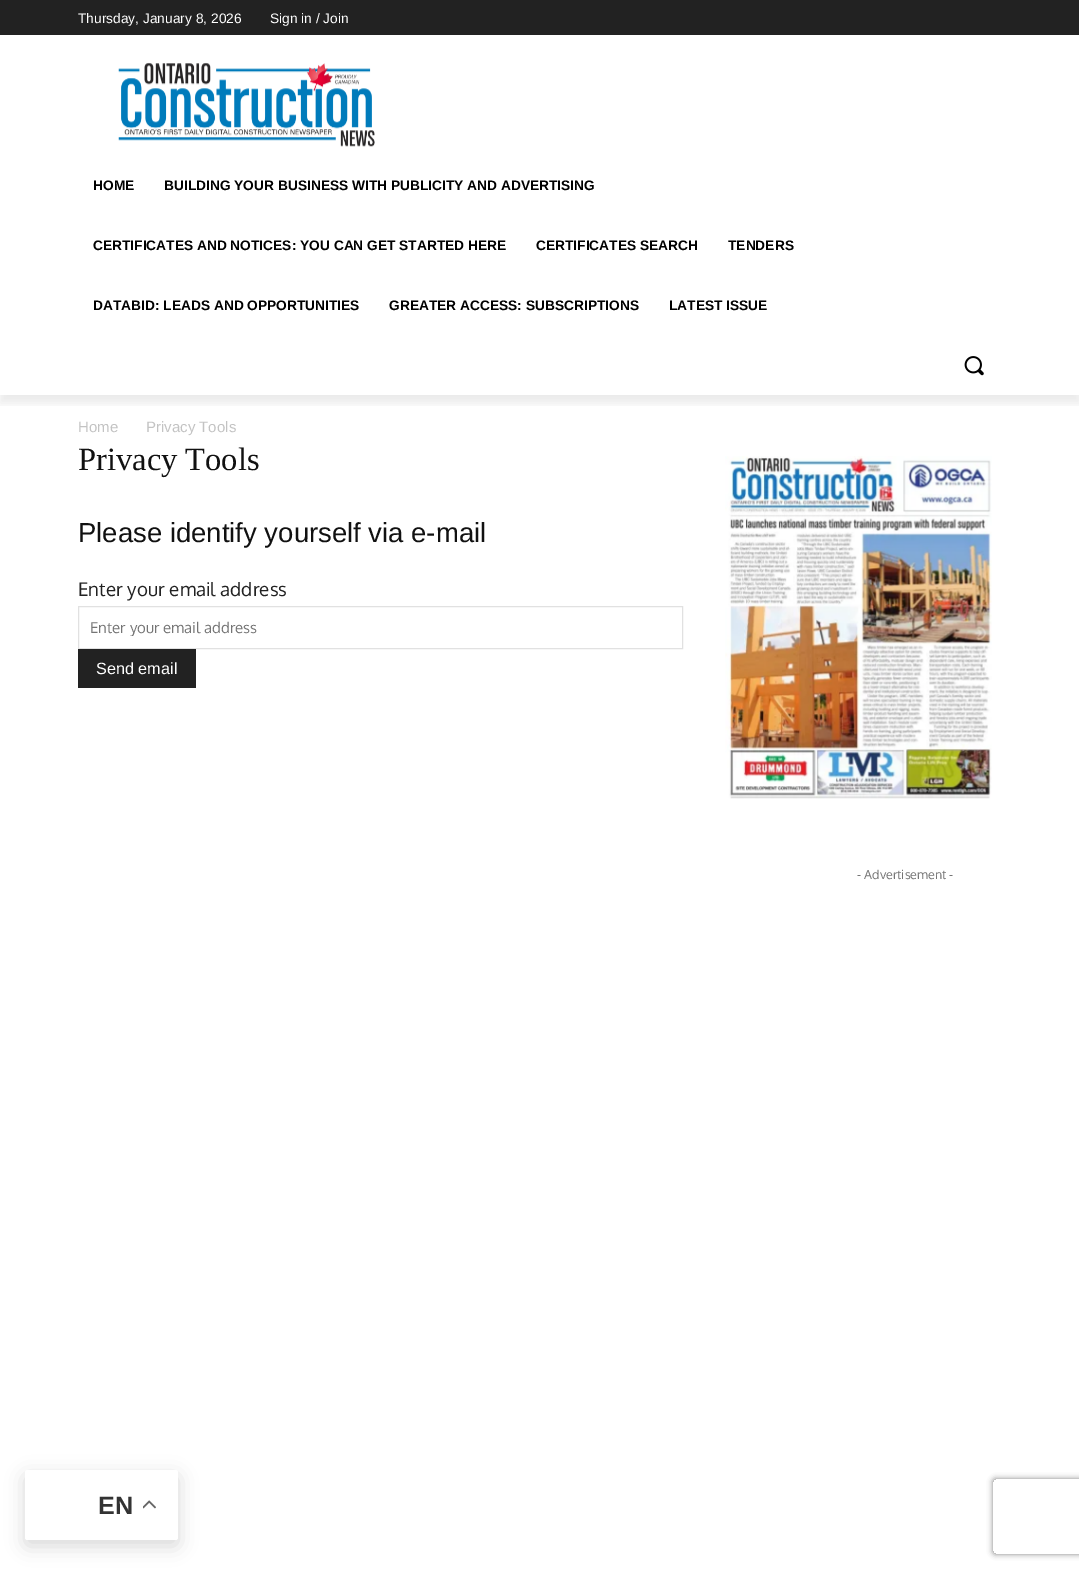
%!PS
<< /PageSize [1079 1571] /PageUsesTransparency true >> setpagedevice
/rgb { 3 { 255 div 3 1 roll } repeat setrgbcolor } def
/font { [ exch dup neg 0 0 3 -1 roll 0 0 ] selectfont } def
/alpha { dup .setfillconstantalpha .setstrokeconstantalpha } def
/roundrect { 5 dict begin { /r /h /w /y /x } { exch def } forall
  x r add y moveto x w add y 2 copy h add r arct x w add y h add x 1 index r arct
  x y h add x y r arct x y 2 copy exch w add exch r arct closepath end } def
/shadow { 12 dict begin { /a /b /q /h /w /y /x } { exch def } forall gsave /was 0 def
  9 -2 -9 { dup b mul 4 div /e exch def 1 sub .425 mul 2.718 exch exp 1 add a .99 .min exch div /now exch def
    1 1 now sub 1 was sub div sub alpha /was now def
    w h .min e 2 mul add 0 gt { x e sub y e sub w e 2 mul add h e 2 mul add
      q e add b .6 mul add w h .min 2 div e add .min 0 .max roundrect fill } if } for grestore end } def
/picture { 5 dict begin { /h /w /y /x /name } { exch def } forall
  gsave x y translate w h scale
  w h 8 [w 0 0 h 0 0] name (r) file false 3 colorimage grestore end } def
0 .pushpdf14devicefilter
0 1571 translate 1 -1 scale
4 setmiterlimit
255 255 255 rgb
0 0 1079 1571 rectfill
34 34 34 rgb
0 0 1079 35 rectfill
(img/1.rgb) 118 62 257 85 picture
gsave
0 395 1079 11 rectclip
0 0 0 rgb
0 8 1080 395 0 5 0.08 shadow
grestore
(img/2.rgb) 964 356 20 20 picture
225 225 225 rgb
78.5 606.5 604 42 rectstroke
34 34 34 rgb
78 649 118 39 rectfill
(img/3.rgb) 725 456 267 343 picture
0 0 0 rgb
25 1476 153 70 2.5 9.5 0.15 shadow
255 255 255 rgb
25 1470 153 70 2.5 roundrect fill
(img/4.rgb) 143 1500 13 9 picture
gsave
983 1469 moveto 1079 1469 lineto 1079 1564 lineto 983 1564 lineto closepath 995.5 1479 moveto 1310.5 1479 lineto 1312 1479 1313 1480 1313 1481.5 curveto 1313 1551.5 lineto 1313 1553 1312 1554 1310.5 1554 curveto 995.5 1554 lineto 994 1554 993 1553 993 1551.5 curveto 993 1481.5 lineto 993 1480 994 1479 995.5 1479 curveto closepath eoclip newpath
128 128 128 rgb
993 1479 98 75 2.5 3 1 shadow
grestore
/LiberationSans-Regular 13.75 font
78 23 moveto (Thursday, January 8, 2026) show
270 23 moveto (Sign in / Join) show
/LiberationSans-Bold 13.75 font
0 0 0 rgb
[
  [(HOME) 93 190]
  [(BUILDING YOUR BUSINESS WITH PUBLICITY AND ADVERTISING) 164 190]
  [(CERTIFICATES AND NOTICES: YOU CAN GET STARTED HERE) 93 250]
  [(CERTIFICATES SEARCH) 536 250]
  [(TENDERS) 728 250]
  [(DATABID: LEADS AND OPPORTUNITIES) 93 310]
  [(GREATER ACCESS: SUBSCRIPTIONS) 389 310]
  [(LATEST ISSUE) 669 310]
] { aload pop moveto show } forall
/LiberationSans-Regular 15 font
195 195 195 rgb
78 432 moveto (Home) show
146 432 moveto (Privacy Tools) show
/LiberationSerif-Regular 32.5 font
17 17 17 rgb
78 470 moveto (Privacy Tools) show
/LiberationSans-Regular 27.5 font
78 542 moveto (Please identify yourself via e-mail) show
/Oxygen-Regular 18.75 font
34 34 34 rgb
78 596 moveto (Enter your email address) show
gsave
90 618 580 18 rectclip
/Oxygen-Regular 15 font
117 117 117 rgb
90 633 moveto (Enter your email address) show
grestore
/LiberationSans-Regular 16.25 font
255 255 255 rgb
96 674 moveto (Send email) show
/Oxygen-Regular 12.5 font
117 117 117 rgb
857 879 moveto (- Advertisement -) show
/LiberationSans-Bold 25 font
51 51 51 rgb
98 1514 moveto (EN) show
.poppdf14devicefilter showpage
